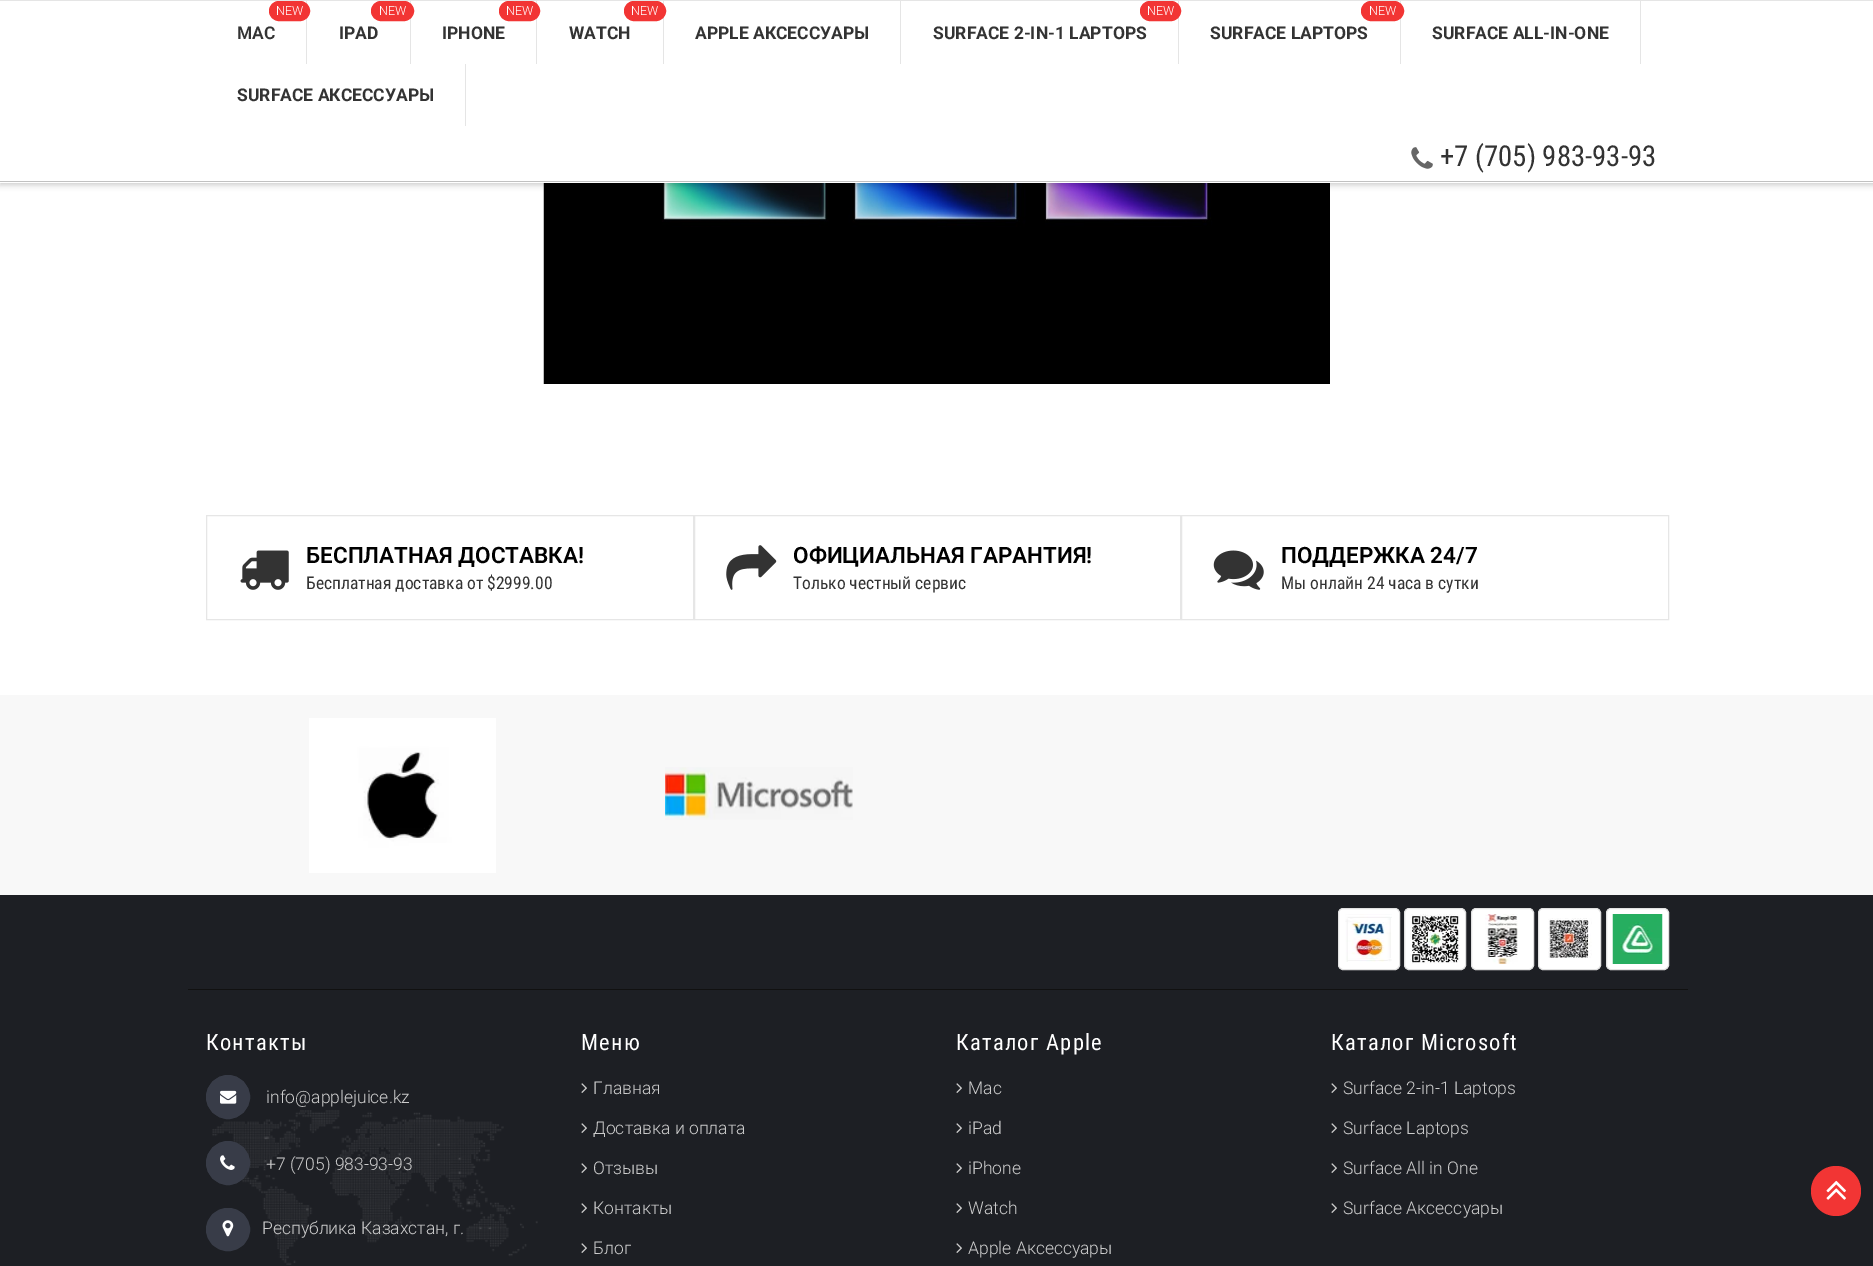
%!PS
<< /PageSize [1873 1266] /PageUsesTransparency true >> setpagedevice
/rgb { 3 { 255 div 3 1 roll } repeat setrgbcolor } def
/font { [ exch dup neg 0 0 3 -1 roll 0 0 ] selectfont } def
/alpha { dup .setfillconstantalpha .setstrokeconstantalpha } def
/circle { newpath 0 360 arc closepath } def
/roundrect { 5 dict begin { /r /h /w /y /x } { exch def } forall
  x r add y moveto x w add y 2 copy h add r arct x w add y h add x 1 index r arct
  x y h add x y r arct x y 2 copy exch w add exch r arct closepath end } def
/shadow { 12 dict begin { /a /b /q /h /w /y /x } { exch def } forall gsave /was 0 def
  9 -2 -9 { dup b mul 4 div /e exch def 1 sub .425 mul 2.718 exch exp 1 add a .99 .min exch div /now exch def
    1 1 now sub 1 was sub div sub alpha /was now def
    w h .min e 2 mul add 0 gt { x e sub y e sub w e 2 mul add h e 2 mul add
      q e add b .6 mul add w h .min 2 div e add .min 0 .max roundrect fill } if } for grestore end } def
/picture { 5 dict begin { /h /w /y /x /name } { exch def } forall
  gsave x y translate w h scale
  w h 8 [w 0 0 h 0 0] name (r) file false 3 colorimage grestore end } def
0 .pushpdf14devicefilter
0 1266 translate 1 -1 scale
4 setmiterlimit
255 255 255 rgb
0 0 1873 1266 rectfill
(img/2.rgb) 543 183 787 201 picture
0 0 0 rgb
0 3 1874 182 0 3 0.2 shadow
[
  [0 1 1873 182 255 255 255]
  [0 0 1873 1 229 229 229]
  [0 181 1873 1 193 193 193]
  [306 1 1 63 229 229 229]
] { aload pop rgb rectfill } forall
242 53 52 rgb
269.5 1.5 40 19 9.5 roundrect gsave fill grestore
stroke
229 229 229 rgb
410 1 1 63 rectfill
242 53 52 rgb
371.5 1.5 42 19 9.5 roundrect gsave fill grestore
stroke
229 229 229 rgb
536 1 1 63 rectfill
242 53 52 rgb
499.5 1.5 40 19 9.5 roundrect gsave fill grestore
stroke
229 229 229 rgb
663 1 1 63 rectfill
242 53 52 rgb
624.5 1.5 41 19 9.5 roundrect gsave fill grestore
stroke
229 229 229 rgb
900 1 1 63 rectfill
1178 1 1 63 rectfill
242 53 52 rgb
1140.5 1.5 40 19 9.5 roundrect gsave fill grestore
stroke
229 229 229 rgb
1400 1 1 63 rectfill
242 53 52 rgb
1361.5 1.5 42 19 9.5 roundrect gsave fill grestore
stroke
229 229 229 rgb
1640 1 1 63 rectfill
465 64 1 62 rectfill
(img/1.rgb) 1411 147 22 22 picture
230 230 230 rgb
206.5 515.5 487 104 rectstroke
(img/3.rgb) 240 550 49 40 picture
694.5 515.5 486 104 rectstroke
(img/4.rgb) 726 545 51 45 picture
1181.5 515.5 487 104 rectstroke
(img/5.rgb) 1213 550 51 40 picture
248 248 248 rgb
0 695 1873 200 rectfill
(img/6.rgb) 309 718 187 155 picture
(img/7.rgb) 665 767 188 53 picture
29 31 36 rgb
0 895 1873 371 rectfill
17 17 17 rgb
188 989 1500 1 rectfill
255 255 255 rgb
1338.5 908.5 61 61 4.5 roundrect gsave fill grestore
224 224 224 rgb
stroke
(img/8.rgb) 1345 914 47 48 picture
255 255 255 rgb
1404.5 908.5 61 61 4.5 roundrect gsave fill grestore
224 224 224 rgb
stroke
(img/9.rgb) 1410 914 50 50 picture
255 255 255 rgb
1471.5 908.5 62 61 4.5 roundrect gsave fill grestore
224 224 224 rgb
stroke
(img/10.rgb) 1485 914 33 50 picture
255 255 255 rgb
1538.5 908.5 62 61 4.5 roundrect gsave fill grestore
224 224 224 rgb
stroke
(img/11.rgb) 1548 918 44 40 picture
255 255 255 rgb
1606.5 908.5 62 61 4.5 roundrect gsave fill grestore
224 224 224 rgb
stroke
(img/12.rgb) 1612 914 51 50 picture
(img/13.rgb) 212 1110 326 155 picture
56 60 72 rgb
228 1097 21.5 circle gsave fill grestore
stroke
(img/14.rgb) 220 1090 17 14 picture
228 1163 21.5 circle gsave fill grestore
stroke
(img/15.rgb) 220 1155 15 15 picture
206.5 1208.5 43 42 21 roundrect gsave fill grestore
stroke
(img/16.rgb) 222 1220 12 17 picture
(img/17.rgb) 581 1083 6 10 picture
(img/17.rgb) 581 1123 6 10 picture
(img/17.rgb) 581 1163 6 10 picture
(img/17.rgb) 581 1203 6 10 picture
(img/17.rgb) 581 1243 6 10 picture
(img/17.rgb) 956 1083 6 10 picture
(img/17.rgb) 956 1123 6 10 picture
(img/17.rgb) 956 1163 6 10 picture
(img/17.rgb) 956 1203 6 10 picture
(img/17.rgb) 956 1243 6 10 picture
(img/17.rgb) 1331 1083 6 10 picture
(img/17.rgb) 1331 1123 6 10 picture
(img/17.rgb) 1331 1163 6 10 picture
(img/17.rgb) 1331 1203 6 10 picture
242 53 52 rgb
1836 1191 25 circle fill
(img/18.rgb) 1826 1180 20 20 picture
/Roboto-Light 12.5 font
255 255 255 rgb
276 15 moveto (NEW) show
/Roboto-SemiBold 17.5 font
51 51 51 rgb
237 39 moveto (MAC) show
/Roboto-Light 12.5 font
255 255 255 rgb
379 15 moveto (NEW) show
/Roboto-Bold 17.5 font
51 51 51 rgb
339 39 moveto (IPAD) show
/Roboto-Light 12.5 font
255 255 255 rgb
506 15 moveto (NEW) show
/Roboto-Bold 17.5 font
51 51 51 rgb
442 39 moveto (IPHONE) show
/Roboto-Light 12.5 font
255 255 255 rgb
631 15 moveto (NEW) show
/Roboto-Bold 17.5 font
51 51 51 rgb
569 39 moveto (WATCH) show
695 39 moveto (APPLE АКСЕССУАРЫ) show
/Roboto-Light 12.5 font
255 255 255 rgb
1147 15 moveto (NEW) show
/Roboto-Bold 17.5 font
51 51 51 rgb
933 39 moveto (SURFACE 2-IN-1 LAPTOPS) show
/Roboto-Light 12.5 font
255 255 255 rgb
1369 15 moveto (NEW) show
/Roboto-Bold 17.5 font
51 51 51 rgb
[
  [(SURFACE LAPTOPS) 1210 39]
  [(SURFACE ALL-IN-ONE) 1432 39]
  [(SURFACE АКСЕССУАРЫ) 237 101]
] { aload pop moveto show } forall
/RobotoCondensed-Regular 28.75 font
1440 166 moveto (+7 \(705\) 983-93-93) show
/Roboto-SemiBold 22.5 font
0 0 0 rgb
306 563 moveto (БЕСПЛАТНАЯ ДОСТАВКА!) show
/RobotoCondensed-Regular 17.5 font
51 51 51 rgb
306 589 moveto (Бесплатная доставка от $2999.00) show
/Roboto-SemiBold 22.5 font
0 0 0 rgb
793 563 moveto (ОФИЦИАЛЬНАЯ ГАРАНТИЯ!) show
/RobotoCondensed-Regular 17.5 font
51 51 51 rgb
793 589 moveto (Только честный сервис) show
/Roboto-SemiBold 22.5 font
0 0 0 rgb
1281 563 moveto (ПОДДЕРЖКА 24/7) show
/RobotoCondensed-Regular 17.5 font
51 51 51 rgb
1281 589 moveto (Мы онлайн 24 часа в сутки) show
/RobotoCondensed-Regular 22.5 font
255 255 255 rgb
206 1050 moveto 1.25 0 (Контакты) ashow
/Roboto-Light 17.5 font
204 204 204 rgb
[
  [(info@applejuice.kz) 266 1103]
  [(+7 \(705\) 983-93-93) 266 1170]
  [(Республика Казахстан, г.) 262 1234]
] { aload pop moveto show } forall
/RobotoCondensed-Regular 22.5 font
255 255 255 rgb
581 1050 moveto 1.25 0 (Меню) ashow
/Roboto-Light 17.5 font
204 204 204 rgb
[
  [(Главная) 593 1094]
  [(Доставка и оплата) 593 1134]
  [(Отзывы) 593 1174]
  [(Контакты) 593 1214]
  [(Блог) 593 1254]
] { aload pop moveto show } forall
/RobotoCondensed-Regular 22.5 font
255 255 255 rgb
956 1050 moveto 1.25 0 (Каталог Apple) ashow
/Roboto-Light 17.5 font
204 204 204 rgb
[
  [(Mac) 968 1094]
  [(iPad) 968 1134]
  [(iPhone) 968 1174]
  [(Watch) 968 1214]
  [(Apple Аксессуары) 968 1254]
] { aload pop moveto show } forall
/RobotoCondensed-Regular 22.5 font
255 255 255 rgb
1331 1050 moveto 1.25 0 (Каталог Microsoft) ashow
/Roboto-Light 17.5 font
204 204 204 rgb
[
  [(Surface 2-in-1 Laptops) 1343 1094]
  [(Surface Laptops) 1343 1134]
  [(Surface All in One) 1343 1174]
  [(Surface Аксессуары) 1343 1214]
] { aload pop moveto show } forall
.poppdf14devicefilter showpage
